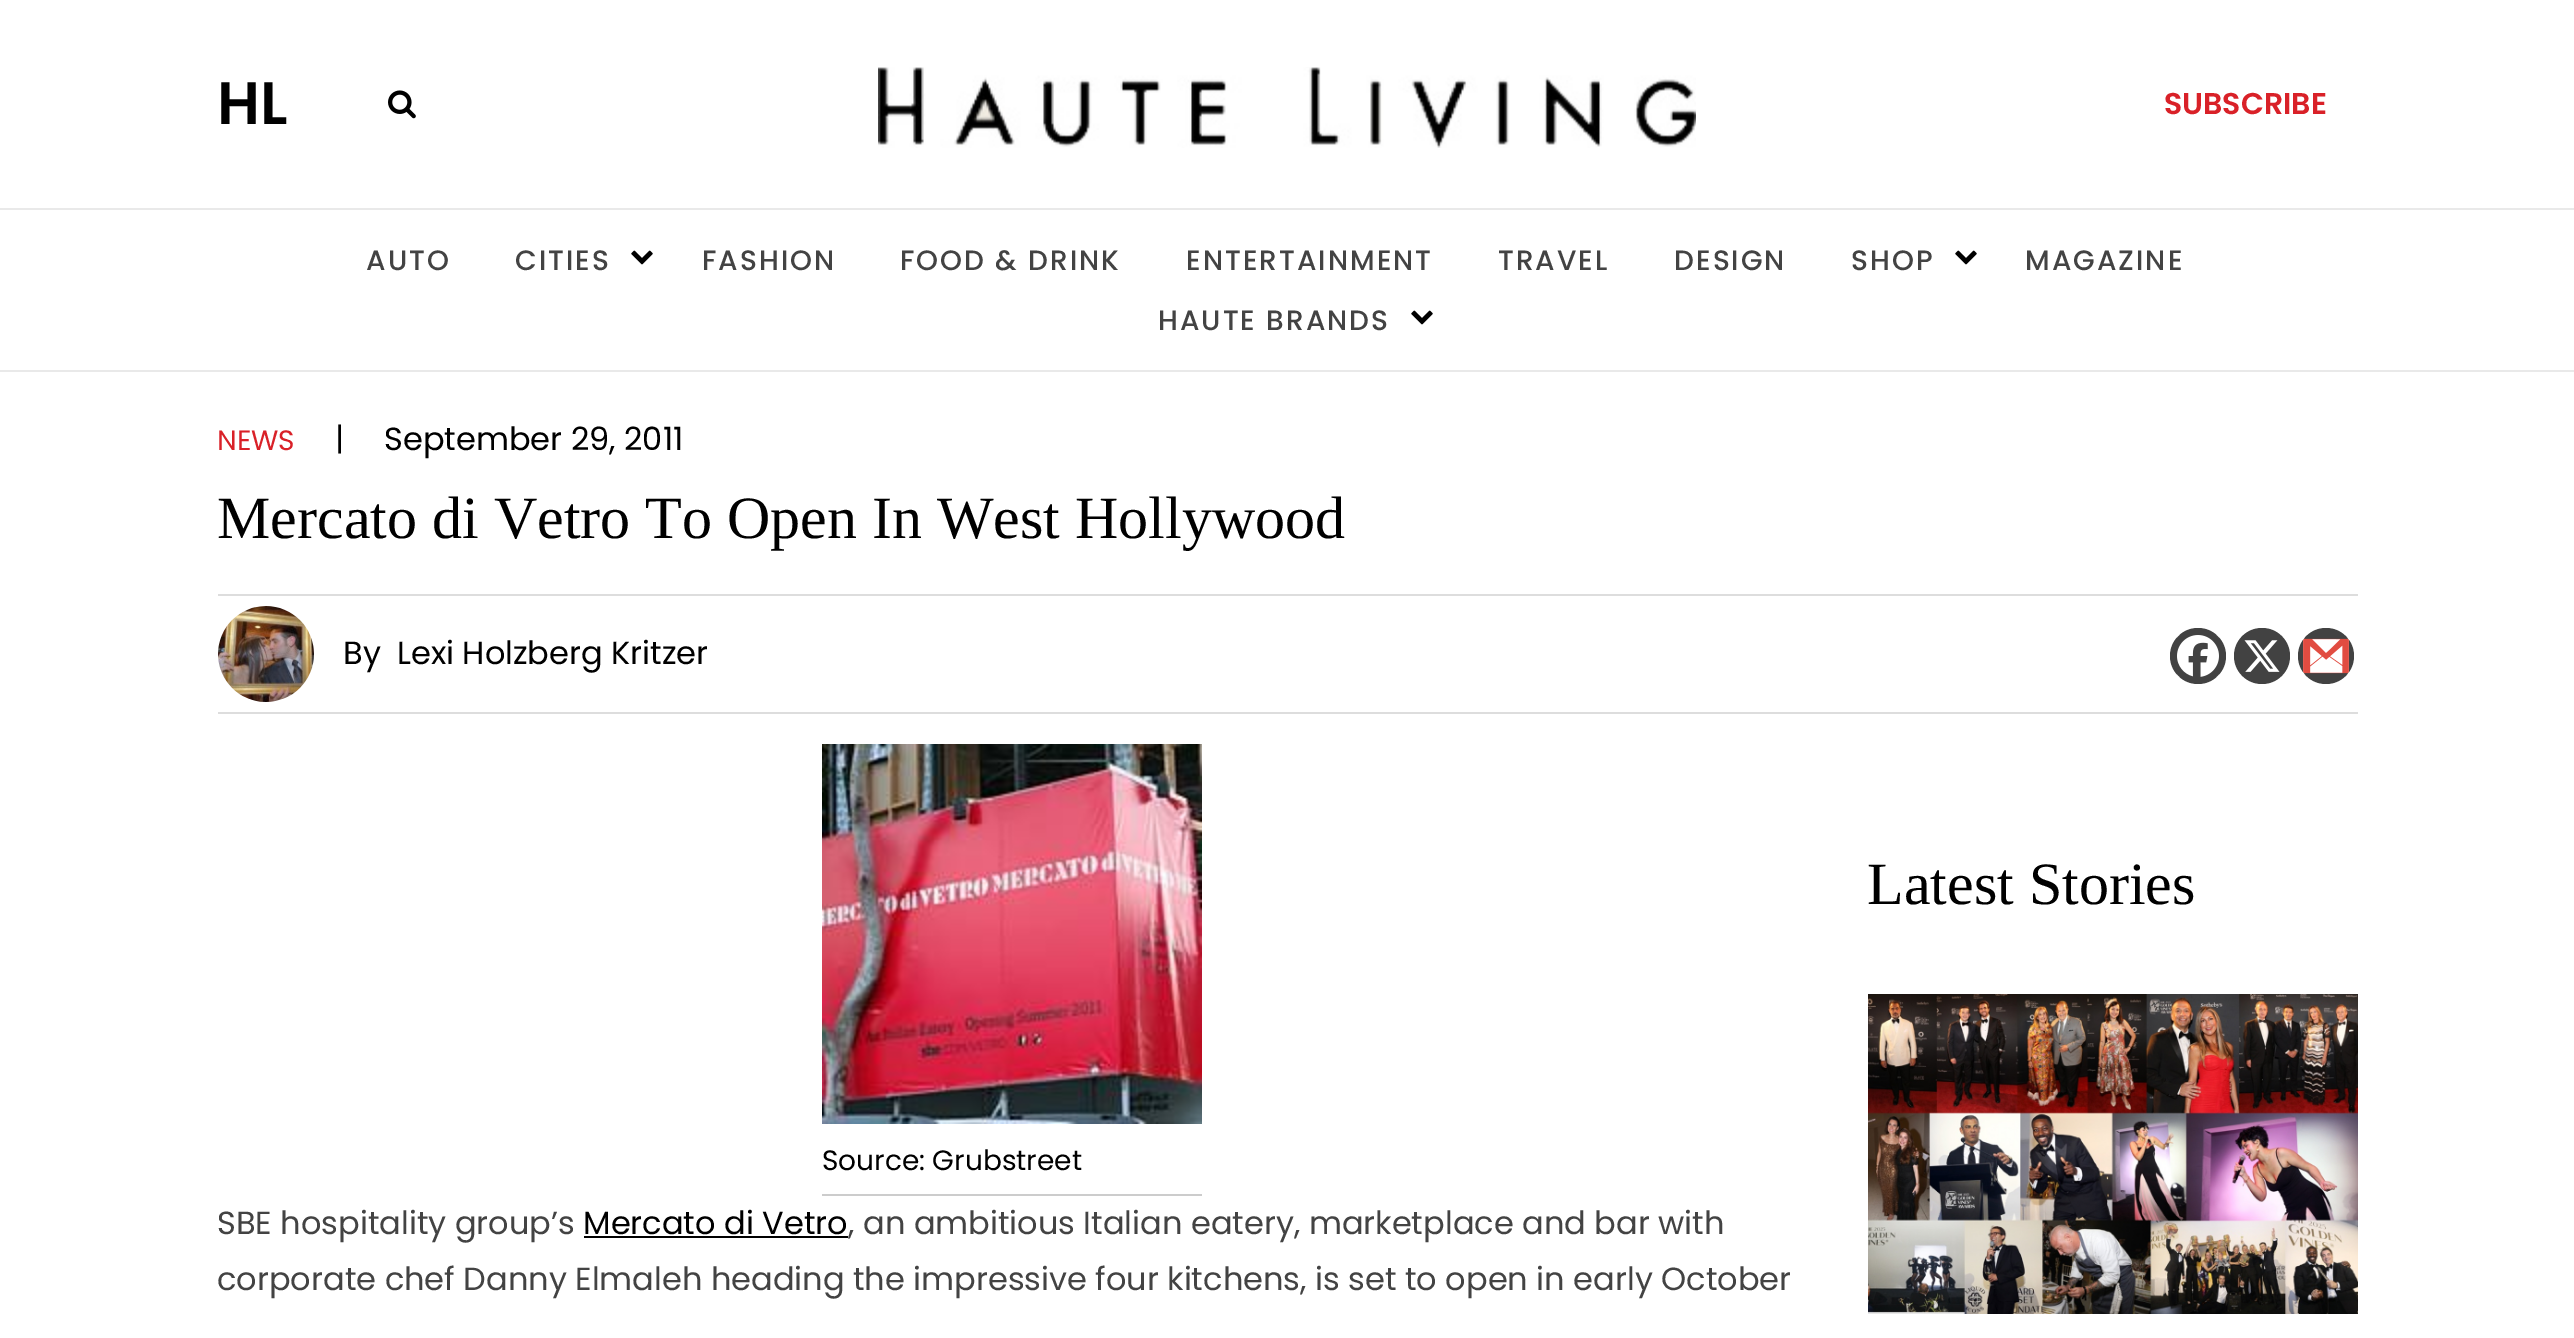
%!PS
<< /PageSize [2574 1338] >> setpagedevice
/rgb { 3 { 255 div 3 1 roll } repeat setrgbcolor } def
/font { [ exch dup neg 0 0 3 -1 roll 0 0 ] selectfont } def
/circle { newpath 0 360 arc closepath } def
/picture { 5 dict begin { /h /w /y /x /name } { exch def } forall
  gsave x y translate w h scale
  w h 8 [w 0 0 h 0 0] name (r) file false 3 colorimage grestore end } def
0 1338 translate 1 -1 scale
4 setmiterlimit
255 255 255 rgb
0 0 2574 1338 rectfill
233 233 233 rgb
0 208 2574 2 rectfill
(img/1.rgb) 388 90 28 29 picture
(img/2.rgb) 878 67 818 81 picture
0 370 2574 2 rectfill
(img/3.rgb) 631 250 22 15 picture
(img/3.rgb) 1955 250 22 15 picture
(img/3.rgb) 1411 310 22 15 picture
221 221 221 rgb
218 594 2140 2 rectfill
218 712 2140 2 rectfill
(img/4.rgb) 218 606 96 96 picture
66 66 66 rgb
2198 656 28 circle fill
(img/5.rgb) 2177 635 42 42 picture
2262 656 28 circle fill
(img/6.rgb) 2244 640 36 32 picture
2326 656 28 circle fill
(img/7.rgb) 2303 638 46 36 picture
(img/8.rgb) 1868 994 490 320 picture
(img/9.rgb) 822 744 380 380 picture
204 204 204 rgb
822 1194 380 2 rectfill
0 0 0 rgb
584 1236 264 2 rectfill
/Poppins-SemiBold 60 font
217 124 moveto (HL) show
/Poppins-SemiBold 30 font
217 33 40 rgb
2164 114 moveto (SUBSCRIBE) show
/Poppins-Medium 28 font
67 67 67 rgb
366 270 moveto 2 0 (AUTO) ashow
515 270 moveto 2 0 (CITIES) ashow
702 270 moveto 2 0 (FASHION) ashow
900 270 moveto 2 0 (FOOD & DRINK) ashow
1186 270 moveto 2 0 (ENTERTAINMENT) ashow
1498 270 moveto 2 0 (TRAVEL) ashow
1674 270 moveto 2 0 (DESIGN) ashow
1851 270 moveto 2 0 (SHOP) ashow
2025 270 moveto 2 0 (MAGAZINE) ashow
1158 330 moveto 2 0 (HAUTE BRANDS) ashow
/Poppins-Regular 28 font
217 33 40 rgb
217 450 moveto (NEWS) show
/Poppins-Regular 32 font
0 0 0 rgb
335 450 moveto (|) show
384 450 moveto (September 29, 2011) show
/LiberationSerif-Regular 60 font
217 538 moveto (Mercato di Vetro To Open In West Hollywood) show
/Poppins-Regular 32 font
343 664 moveto (By) show
397 664 moveto (Lexi Holzberg Kritzer) show
/LiberationSerif-Regular 60 font
1867 904 moveto (Latest Stories) show
/Poppins-Regular 28 font
822 1170 moveto (Source: Grubstreet) show
/Poppins-Regular 32 font
67 67 67 rgb
217 1234 moveto (SBE hospitality group’s) show
0 0 0 rgb
583 1234 moveto (Mercato di Vetro) show
67 67 67 rgb
848 1234 moveto (, an ambitious Italian eatery, marketplace and bar with) show
217 1290 moveto (corporate chef Danny Elmaleh heading the impressive four kitchens, is set to open in early October) show
showpage
